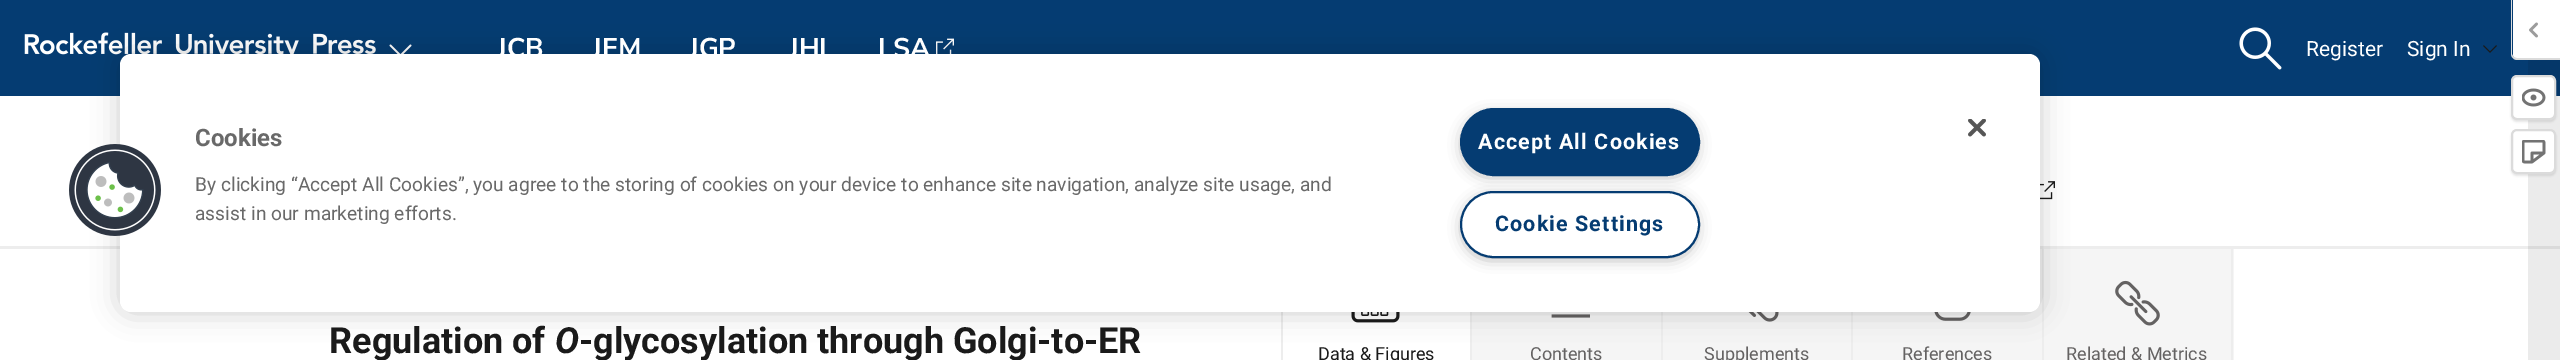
%!PS
<< /PageSize [2560 360] /PageUsesTransparency true >> setpagedevice
/rgb { 3 { 255 div 3 1 roll } repeat setrgbcolor } def
/font { [ exch dup neg 0 0 3 -1 roll 0 0 ] selectfont } def
/alpha { dup .setfillconstantalpha .setstrokeconstantalpha } def
/roundrect { 5 dict begin { /r /h /w /y /x } { exch def } forall
  x r add y moveto x w add y 2 copy h add r arct x w add y h add x 1 index r arct
  x y h add x y r arct x y 2 copy exch w add exch r arct closepath end } def
/shadow { 12 dict begin { /a /b /q /h /w /y /x } { exch def } forall gsave /was 0 def
  9 -2 -9 { dup b mul 4 div /e exch def 1 sub .425 mul 2.718 exch exp 1 add a .99 .min exch div /now exch def
    1 1 now sub 1 was sub div sub alpha /was now def
    w h .min e 2 mul add 0 gt { x e sub y e sub w e 2 mul add h e 2 mul add
      q e add b .6 mul add w h .min 2 div e add .min 0 .max roundrect fill } if } for grestore end } def
/picture { 5 dict begin { /h /w /y /x /name } { exch def } forall
  gsave x y translate w h scale
  w h 8 [w 0 0 h 0 0] name (r) file false 3 colorimage grestore end } def
0 .pushpdf14devicefilter
0 360 translate 1 -1 scale
4 setmiterlimit
255 255 255 rgb
0 0 2560 360 rectfill
[
  [2528 96 32 264 235 235 235]
  [0 0 2528 96 5 60 114]
  [2528 60 32 36 5 55 105]
] { aload pop rgb rectfill } forall
(img/1.rgb) 24 32 352 23 picture
(img/2.rgb) 389 44 23 10 picture
(img/3.rgb) 936 38 18 16 picture
(img/4.rgb) 2239 27 43 43 picture
(img/5.rgb) 2483 45 14 8 picture
237 237 237 rgb
0 246 2528 3 rectfill
218 218 218 rgb
2528 246 32 3 rectfill
(img/6.rgb) 2040 181 15 19 picture
255 255 255 rgb
2513 0 moveto 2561 0 lineto 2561 59 lineto 2518 59 lineto 2515 59 2513 57 2513 54 curveto closepath fill
219 219 219 rgb
2511 0 moveto 2560 0 lineto 2560 60 lineto 2517 60 lineto 2514 60 2511 57 2511 54 curveto closepath 2512 0 moveto 2560 0 lineto 2560 58 lineto 2517 58 lineto 2515 58 2512 56 2512 54 curveto closepath eofill
(img/7.rgb) 2529 22 9 16 picture
0 0 0 rgb
2511 77 45 45 6 1 0.1 shadow
255 255 255 rgb
2512 76 43 43 5 roundrect gsave fill grestore
219 219 219 rgb
2 setlinewidth
stroke
(img/8.rgb) 2522 88 24 19 picture
0 0 0 rgb
2511 131 45 45 6 1 0.1 shadow
255 255 255 rgb
2512 130 43 43 5 roundrect gsave fill grestore
219 219 219 rgb
stroke
(img/9.rgb) 2522 140 24 24 picture
[
  [1281 312 2 48 237 237 237]
  [1472 249 762 111 245 245 245]
  [1470 312 2 48 237 237 237]
] { aload pop rgb rectfill } forall
(img/12.rgb) 1351 312 49 11 picture
1661 312 2 48 rectfill
(img/13.rgb) 1551 314 39 4 picture
1851 312 2 48 rectfill
(img/14.rgb) 1748 312 31 10 picture
2042 249 2 111 rectfill
(img/15.rgb) 1934 312 37 9 picture
0 0 0 rgb
120 54 1920 258 11 13.5 0.2 shadow
255 255 255 rgb
120 54 1920 258 11 roundrect fill
(img/10.rgb) 69 144 92 92 picture
153 153 153 rgb
1464 116 231 58 29 7.5 1 shadow
5 60 114 rgb
1461 109 238 66 33 roundrect gsave fill grestore
stroke
153 153 153 rgb
1464 198 231 59 29.5 7.5 1 shadow
255 255 255 rgb
1461 192 238 65 32.5 roundrect gsave fill grestore
5 60 114 rgb
stroke
(img/11.rgb) 1968 119 18 18 picture
237 237 237 rgb
2231 249 2 111 rectfill
(img/16.rgb) 2115 280 45 46 picture
/NunitoSans-Bold 27 font
255 255 255 rgb
[
  [(JCB) 497 57]
  [(JEM) 592 57]
  [(JGP) 689 57]
  [(JHI) 789 57]
  [(LSA) 878 57]
] { aload pop moveto show } forall
/Roboto-Regular 21 font
2306 56 moveto (Register) show
2407 56 moveto (Sign In) show
/Roboto-Bold 24 font
105 105 105 rgb
195 146 moveto (Cookies) show
/Roboto-Regular 19.2 font
195 191 moveto (By clicking “Accept All Cookies”, you agree to the storing of cookies on your device to enhance site navigation, analyze site usage, and) show
195 220 moveto (assist in our marketing efforts.) show
/Roboto-Bold 21.5 font
255 255 255 rgb
1478 149 moveto 1.1 0 (Accept All Cookies) ashow
5 60 114 rgb
1495 231 moveto 1.1 0 (Cookie Settings) ashow
/Roboto-Bold 36 font
26 26 26 rgb
329 353 moveto (Regulation of) show
/Roboto-BoldItalic 36 font
555 353 moveto (O) show
/Roboto-Bold 36 font
579 353 moveto (-glycosylation through Golgi-to-ER) show
/Roboto-Regular 18 font
1318 360 moveto (Data & Figures) show
100 98 98 rgb
[
  [(Contents) 1530 360]
  [(Supplements) 1704 360]
  [(References) 1902 360]
  [(Related & Metrics) 2066 360]
] { aload pop moveto show } forall
.poppdf14devicefilter showpage
